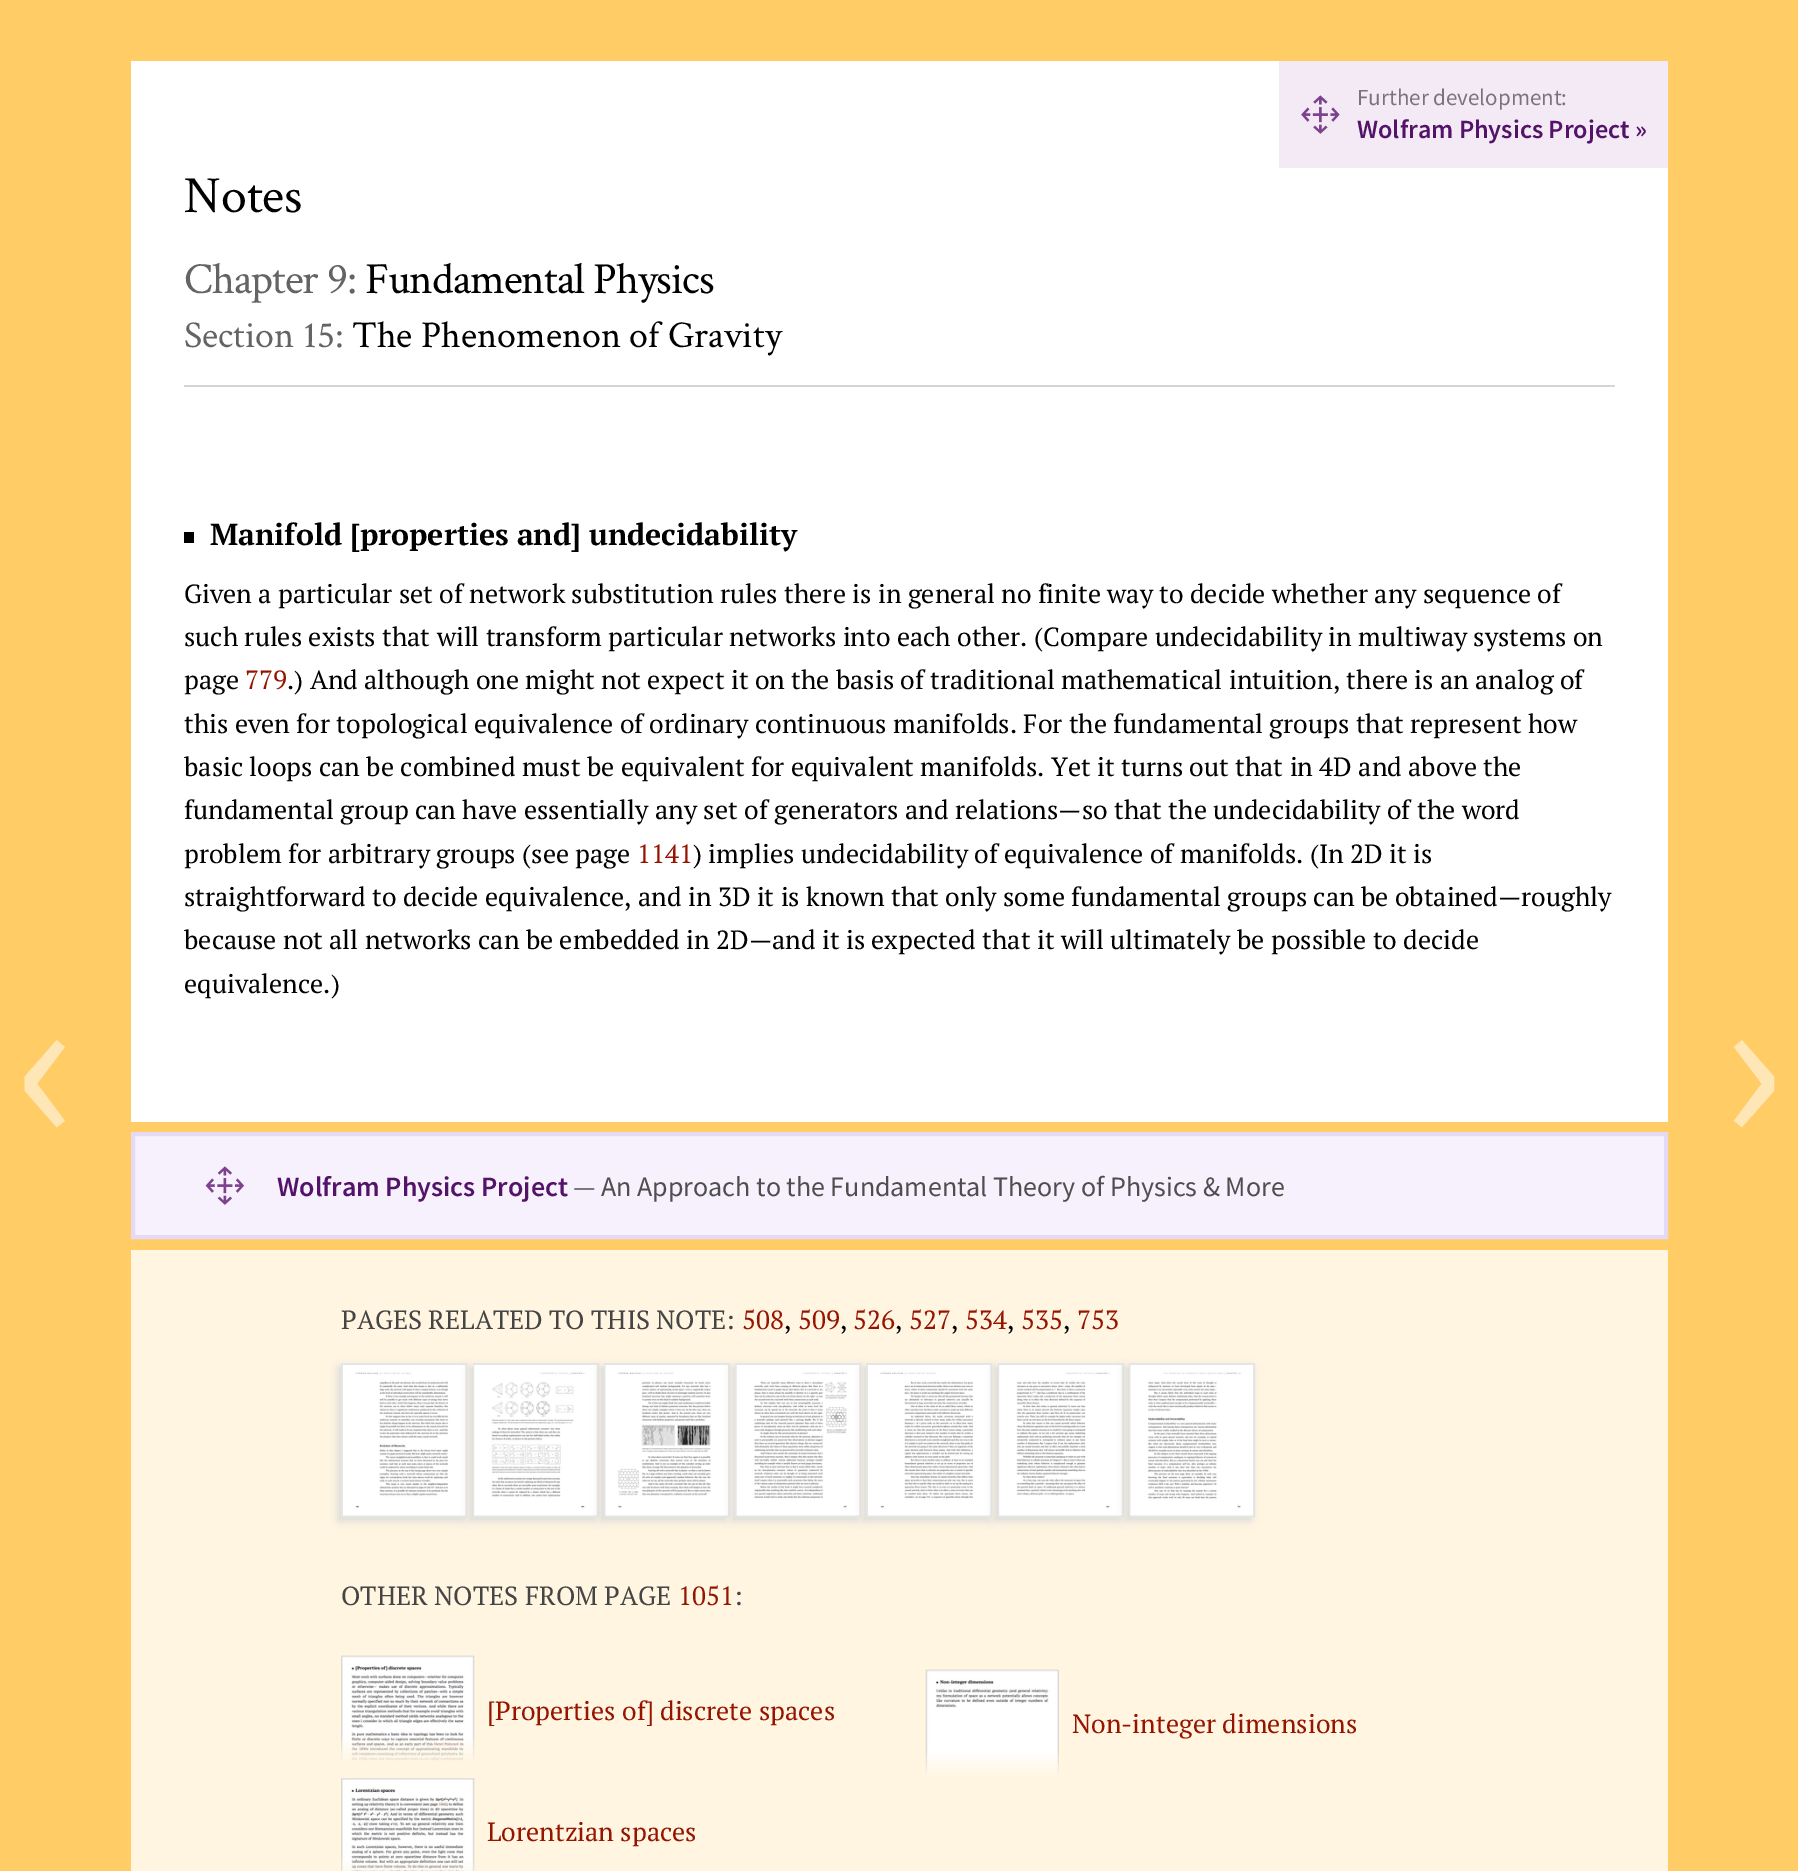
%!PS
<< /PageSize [1798 1871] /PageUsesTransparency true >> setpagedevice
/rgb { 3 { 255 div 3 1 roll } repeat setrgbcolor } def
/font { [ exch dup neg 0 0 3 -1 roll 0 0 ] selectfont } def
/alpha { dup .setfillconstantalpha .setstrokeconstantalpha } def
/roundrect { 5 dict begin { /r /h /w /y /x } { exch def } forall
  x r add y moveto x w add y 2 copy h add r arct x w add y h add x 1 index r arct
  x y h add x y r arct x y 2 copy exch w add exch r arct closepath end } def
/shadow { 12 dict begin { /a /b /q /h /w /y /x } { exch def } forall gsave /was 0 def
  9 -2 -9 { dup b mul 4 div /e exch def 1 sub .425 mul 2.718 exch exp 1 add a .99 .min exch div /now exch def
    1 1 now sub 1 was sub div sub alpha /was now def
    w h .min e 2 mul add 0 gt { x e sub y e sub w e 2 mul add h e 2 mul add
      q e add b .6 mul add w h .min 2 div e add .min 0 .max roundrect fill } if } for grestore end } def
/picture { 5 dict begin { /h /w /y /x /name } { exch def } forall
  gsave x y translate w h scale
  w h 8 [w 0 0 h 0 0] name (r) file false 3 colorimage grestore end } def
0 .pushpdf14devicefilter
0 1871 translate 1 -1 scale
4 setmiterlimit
255 204 102 rgb
0 0 1798 1871 rectfill
255 255 255 rgb
131 61 1537 1061 rectfill
243 234 246 rgb
1279 61 389 107 rectfill
(img/1.rgb) 1301 95 39 39 picture
213 213 213 rgb
184 385 1431 2 rectfill
0 0 0 rgb
184 532 10 11 rectfill
247 241 254 rgb
133 1134 moveto 1666 1134 lineto 1666 1237 lineto 133 1237 lineto closepath gsave fill grestore
229 218 244 rgb
4 setlinewidth
stroke
(img/2.rgb) 205 1166 40 39 picture
255 245 225 rgb
131 1250 1537 621 rectfill
217 217 217 rgb
338 1367 126 154 0 4.5 1 shadow
229 229 229 rgb
2 setlinewidth
342 1364 124 152 rectstroke
(img/3.rgb) 343 1365 123 151 picture
217 217 217 rgb
469 1367 126 154 0 4.5 1 shadow
229 229 229 rgb
474 1364 124 152 rectstroke
(img/4.rgb) 474 1365 123 151 picture
217 217 217 rgb
600 1367 126 154 0 4.5 1 shadow
229 229 229 rgb
605 1364 124 152 rectstroke
(img/5.rgb) 605 1365 123 151 picture
217 217 217 rgb
732 1367 126 154 0 4.5 1 shadow
229 229 229 rgb
736 1364 124 152 rectstroke
(img/6.rgb) 736 1365 124 151 picture
217 217 217 rgb
863 1367 126 154 0 4.5 1 shadow
229 229 229 rgb
867 1364 124 152 rectstroke
(img/7.rgb) 868 1365 123 151 picture
217 217 217 rgb
994 1367 126 154 0 4.5 1 shadow
229 229 229 rgb
999 1364 124 152 rectstroke
(img/8.rgb) 999 1365 123 151 picture
217 217 217 rgb
1125 1367 126 154 0 4.5 1 shadow
229 229 229 rgb
1130 1364 124 152 rectstroke
(img/9.rgb) 1130 1365 123 151 picture
(img/10.rgb) 341 1655 134 106 picture
(img/11.rgb) 925 1669 134 105 picture
(img/12.rgb) 341 1778 134 93 picture
/SourceSansPro-Regular 23 font
125 113 129 rgb
1357 105 moveto (Further development:) show
/SourceSansPro-SemiBold 26.25 font
83 19 104 rgb
1357 138 moveto (Wolfram Physics Project ») show
/CrimsonText-Regular 52 font
0 0 0 rgb
184 212 moveto (Notes) show
/CrimsonText-Regular 44.5 font
100 100 100 rgb
184 293 moveto -1 0 (Chapter 9:) ashow
0 0 0 rgb
365 293 moveto -1 0 (Fundamental Physics) ashow
/CrimsonText-Regular 38 font
100 100 100 rgb
184 347 moveto (Section 15:) show
0 0 0 rgb
352 347 moveto (The Phenomenon of Gravity) show
/PTSerif-Bold 30.2 font
210 545 moveto (Manifold [properties and] undecidability) show
/PTSerif-Regular 26.25 font
[
  [(Given a particular set of network substitution rules there is in general no finite way to decide whether any sequence of) 184 603]
  [(such rules exists that will transform particular networks into each other. \(Compare undecidability in multiway systems on) 184 646]
  [(page) 184 689]
] { aload pop moveto show } forall
149 21 0 rgb
245 689 moveto (779) show
0 0 0 rgb
[
  [(.\) And although one might not expect it on the basis of traditional mathematical intuition, there is an analog of) 287 689]
  [(this even for topological equivalence of ordinary continuous manifolds. For the fundamental groups that represent how) 184 733]
  [(basic loops can be combined must be equivalent for equivalent manifolds. Yet it turns out that in 4D and above the) 184 776]
  [(fundamental group can have essentially any set of generators and relations—so that the undecidability of the word) 184 819]
  [(problem for arbitrary groups \(see page) 184 863]
] { aload pop moveto show } forall
149 21 0 rgb
637 863 moveto (1141) show
0 0 0 rgb
[
  [(\) implies undecidability of equivalence of manifolds. \(In 2D it is) 693 863]
  [(straightforward to decide equivalence, and in 3D it is known that only some fundamental groups can be obtained—roughly) 184 906]
  [(because not all networks can be embedded in 2D—and it is expected that it will ultimately be possible to decide) 184 949]
  [(equivalence.\)) 184 993]
] { aload pop moveto show } forall
/SourceSansPro-Regular 236 font
255 230 182 rgb
14 1143 moveto (‹) show
1721 1143 moveto (›) show
/SourceSansPro-SemiBold 28 font
83 19 104 rgb
277 1196 moveto (Wolfram Physics Project) show
/SourceSansPro-Regular 28 font
78 78 78 rgb
573 1196 moveto (— An Approach to the Fundamental Theory of Physics & More) show
/PTSerif-Regular 26.25 font
69 69 69 rgb
341 1329 moveto (PAGES RELATED TO THIS NOTE:) show
149 21 0 rgb
742 1329 moveto (508) show
0 0 0 rgb
784 1329 moveto (,) show
149 21 0 rgb
798 1329 moveto (509) show
0 0 0 rgb
840 1329 moveto (,) show
149 21 0 rgb
853 1329 moveto (526) show
0 0 0 rgb
895 1329 moveto (,) show
149 21 0 rgb
909 1329 moveto (527) show
0 0 0 rgb
951 1329 moveto (,) show
149 21 0 rgb
965 1329 moveto (534) show
0 0 0 rgb
1007 1329 moveto (,) show
149 21 0 rgb
1021 1329 moveto (535) show
0 0 0 rgb
1063 1329 moveto (,) show
149 21 0 rgb
1077 1329 moveto (753) show
69 69 69 rgb
341 1605 moveto (OTHER NOTES FROM PAGE) show
149 21 0 rgb
678 1605 moveto (1051) show
69 69 69 rgb
734 1605 moveto (:) show
149 21 0 rgb
[
  [([Properties of] discrete spaces) 487 1720]
  [(Non-integer dimensions) 1072 1733]
  [(Lorentzian spaces) 487 1841]
] { aload pop moveto show } forall
.poppdf14devicefilter showpage
